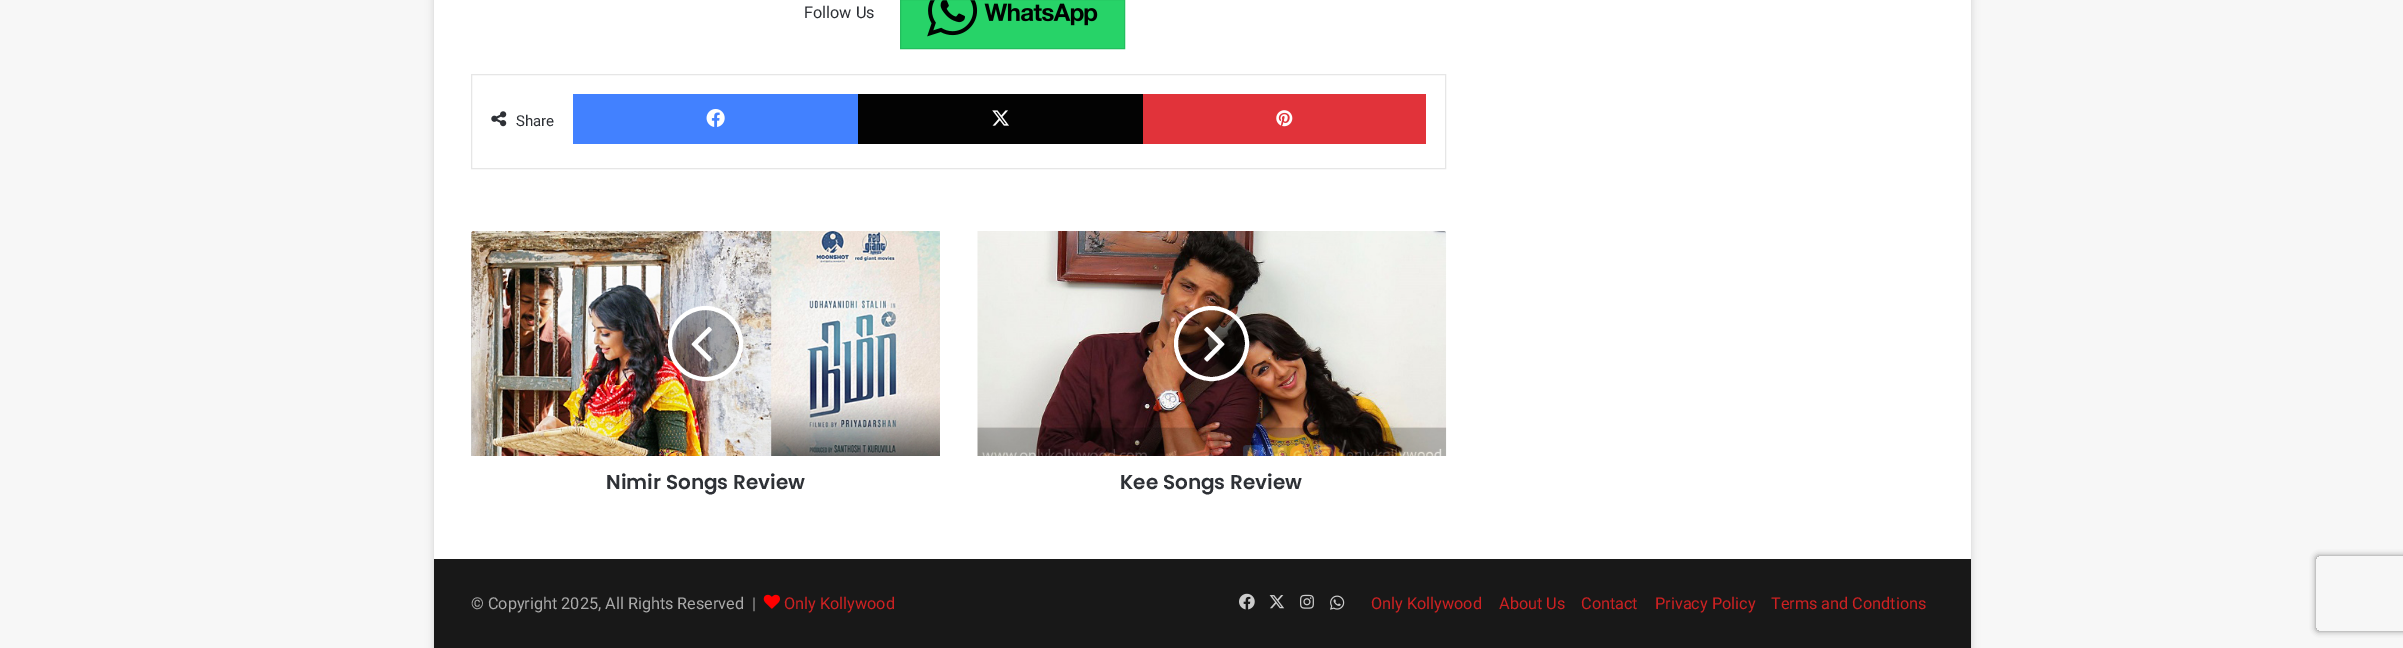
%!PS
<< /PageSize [2403 648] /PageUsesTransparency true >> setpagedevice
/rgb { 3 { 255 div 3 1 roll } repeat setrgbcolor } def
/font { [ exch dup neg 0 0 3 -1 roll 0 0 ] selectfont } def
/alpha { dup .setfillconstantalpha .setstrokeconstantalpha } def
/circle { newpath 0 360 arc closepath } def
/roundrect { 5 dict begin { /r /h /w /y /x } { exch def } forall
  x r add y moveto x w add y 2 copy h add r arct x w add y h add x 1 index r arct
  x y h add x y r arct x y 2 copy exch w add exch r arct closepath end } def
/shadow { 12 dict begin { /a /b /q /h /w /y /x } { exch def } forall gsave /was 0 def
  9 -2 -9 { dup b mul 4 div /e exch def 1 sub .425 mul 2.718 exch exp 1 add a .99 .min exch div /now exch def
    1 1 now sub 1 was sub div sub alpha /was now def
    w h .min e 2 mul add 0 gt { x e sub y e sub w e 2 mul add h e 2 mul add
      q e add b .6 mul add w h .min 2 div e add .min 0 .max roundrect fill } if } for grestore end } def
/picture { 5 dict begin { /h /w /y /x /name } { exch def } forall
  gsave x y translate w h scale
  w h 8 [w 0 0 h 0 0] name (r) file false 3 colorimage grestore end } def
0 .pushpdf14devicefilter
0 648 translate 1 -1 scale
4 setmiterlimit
247 247 247 rgb
0 0 2403 648 rectfill
171 171 171 rgb
434 -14 1537 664 0 4.5 0.5 shadow
255 255 255 rgb
434 0 1537 559 rectfill
39 211 104 rgb
901 0 223 48 rectfill
(img/1.rgb) 927 0 171 37 picture
35 190 94 rgb
900.5 -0.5 224 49 rectstroke
230 230 230 rgb
471.5 74.5 974 94 rectstroke
(img/2.rgb) 491 111 16 16 picture
66 129 255 rgb
573 94 285 50 rectfill
(img/3.rgb) 706 109 19 18 picture
3 3 3 rgb
858 94 285 50 rectfill
(img/4.rgb) 992 110 17 16 picture
225 51 58 rgb
1143 94 283 50 rectfill
(img/5.rgb) 1276 110 17 17 picture
205 205 205 rgb
473.5 231 moveto 940 231 lineto 940 456 lineto 471 456 lineto 471 233.5 lineto 471 232 472 231 473.5 231 curveto closepath fill
(img/6.rgb) 471 231 469 225 picture
0.3 alpha
3 3 3 rgb
705.5 343.5 35.5 circle fill
1 alpha
255 255 255 rgb
4 setlinewidth
705.5 343.5 35.5 circle stroke
(img/7.rgb) 691 326 21 36 picture
(img/8.rgb) 977 231 470 225 picture
0.3 alpha
3 3 3 rgb
1211.5 343.5 35.5 circle fill
1 alpha
255 255 255 rgb
1211.5 343.5 35.5 circle stroke
(img/9.rgb) 1204 326 21 36 picture
24 24 24 rgb
434 559 1537 89 rectfill
(img/10.rgb) 763 594 17 15 picture
(img/11.rgb) 1239 593 16 17 picture
(img/12.rgb) 1269 595 16 14 picture
(img/13.rgb) 1300 594 14 15 picture
(img/14.rgb) 1330 595 15 15 picture
gsave
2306 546 moveto 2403 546 lineto 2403 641 lineto 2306 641 lineto closepath 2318.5 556 moveto 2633.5 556 lineto 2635 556 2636 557 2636 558.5 curveto 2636 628.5 lineto 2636 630 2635 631 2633.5 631 curveto 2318.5 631 lineto 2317 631 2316 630 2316 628.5 curveto 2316 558.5 lineto 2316 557 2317 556 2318.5 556 curveto closepath eoclip newpath
128 128 128 rgb
2316 556 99 75 2.5 3 1 shadow
grestore
/Roboto-Regular 16.25 font
46 49 54 rgb
804 18 moveto (Follow Us) show
/Roboto-Regular 15 font
516 126 moveto (Share) show
/Poppins-SemiBold 20 font
606 489 moveto (Nimir Songs Review) show
1120 489 moveto (Kee Songs Review) show
/Roboto-Regular 16.25 font
170 170 170 rgb
471 609 moveto (© Copyright 2025, All Rights Reserved  |) show
205 33 34 rgb
[
  [(Only Kollywood) 784 609]
  [(Only Kollywood) 1371 609]
  [(About Us) 1499 609]
  [(Contact) 1581 609]
  [(Privacy Policy) 1655 609]
  [(Terms and Condtions) 1771 609]
] { aload pop moveto show } forall
.poppdf14devicefilter showpage
